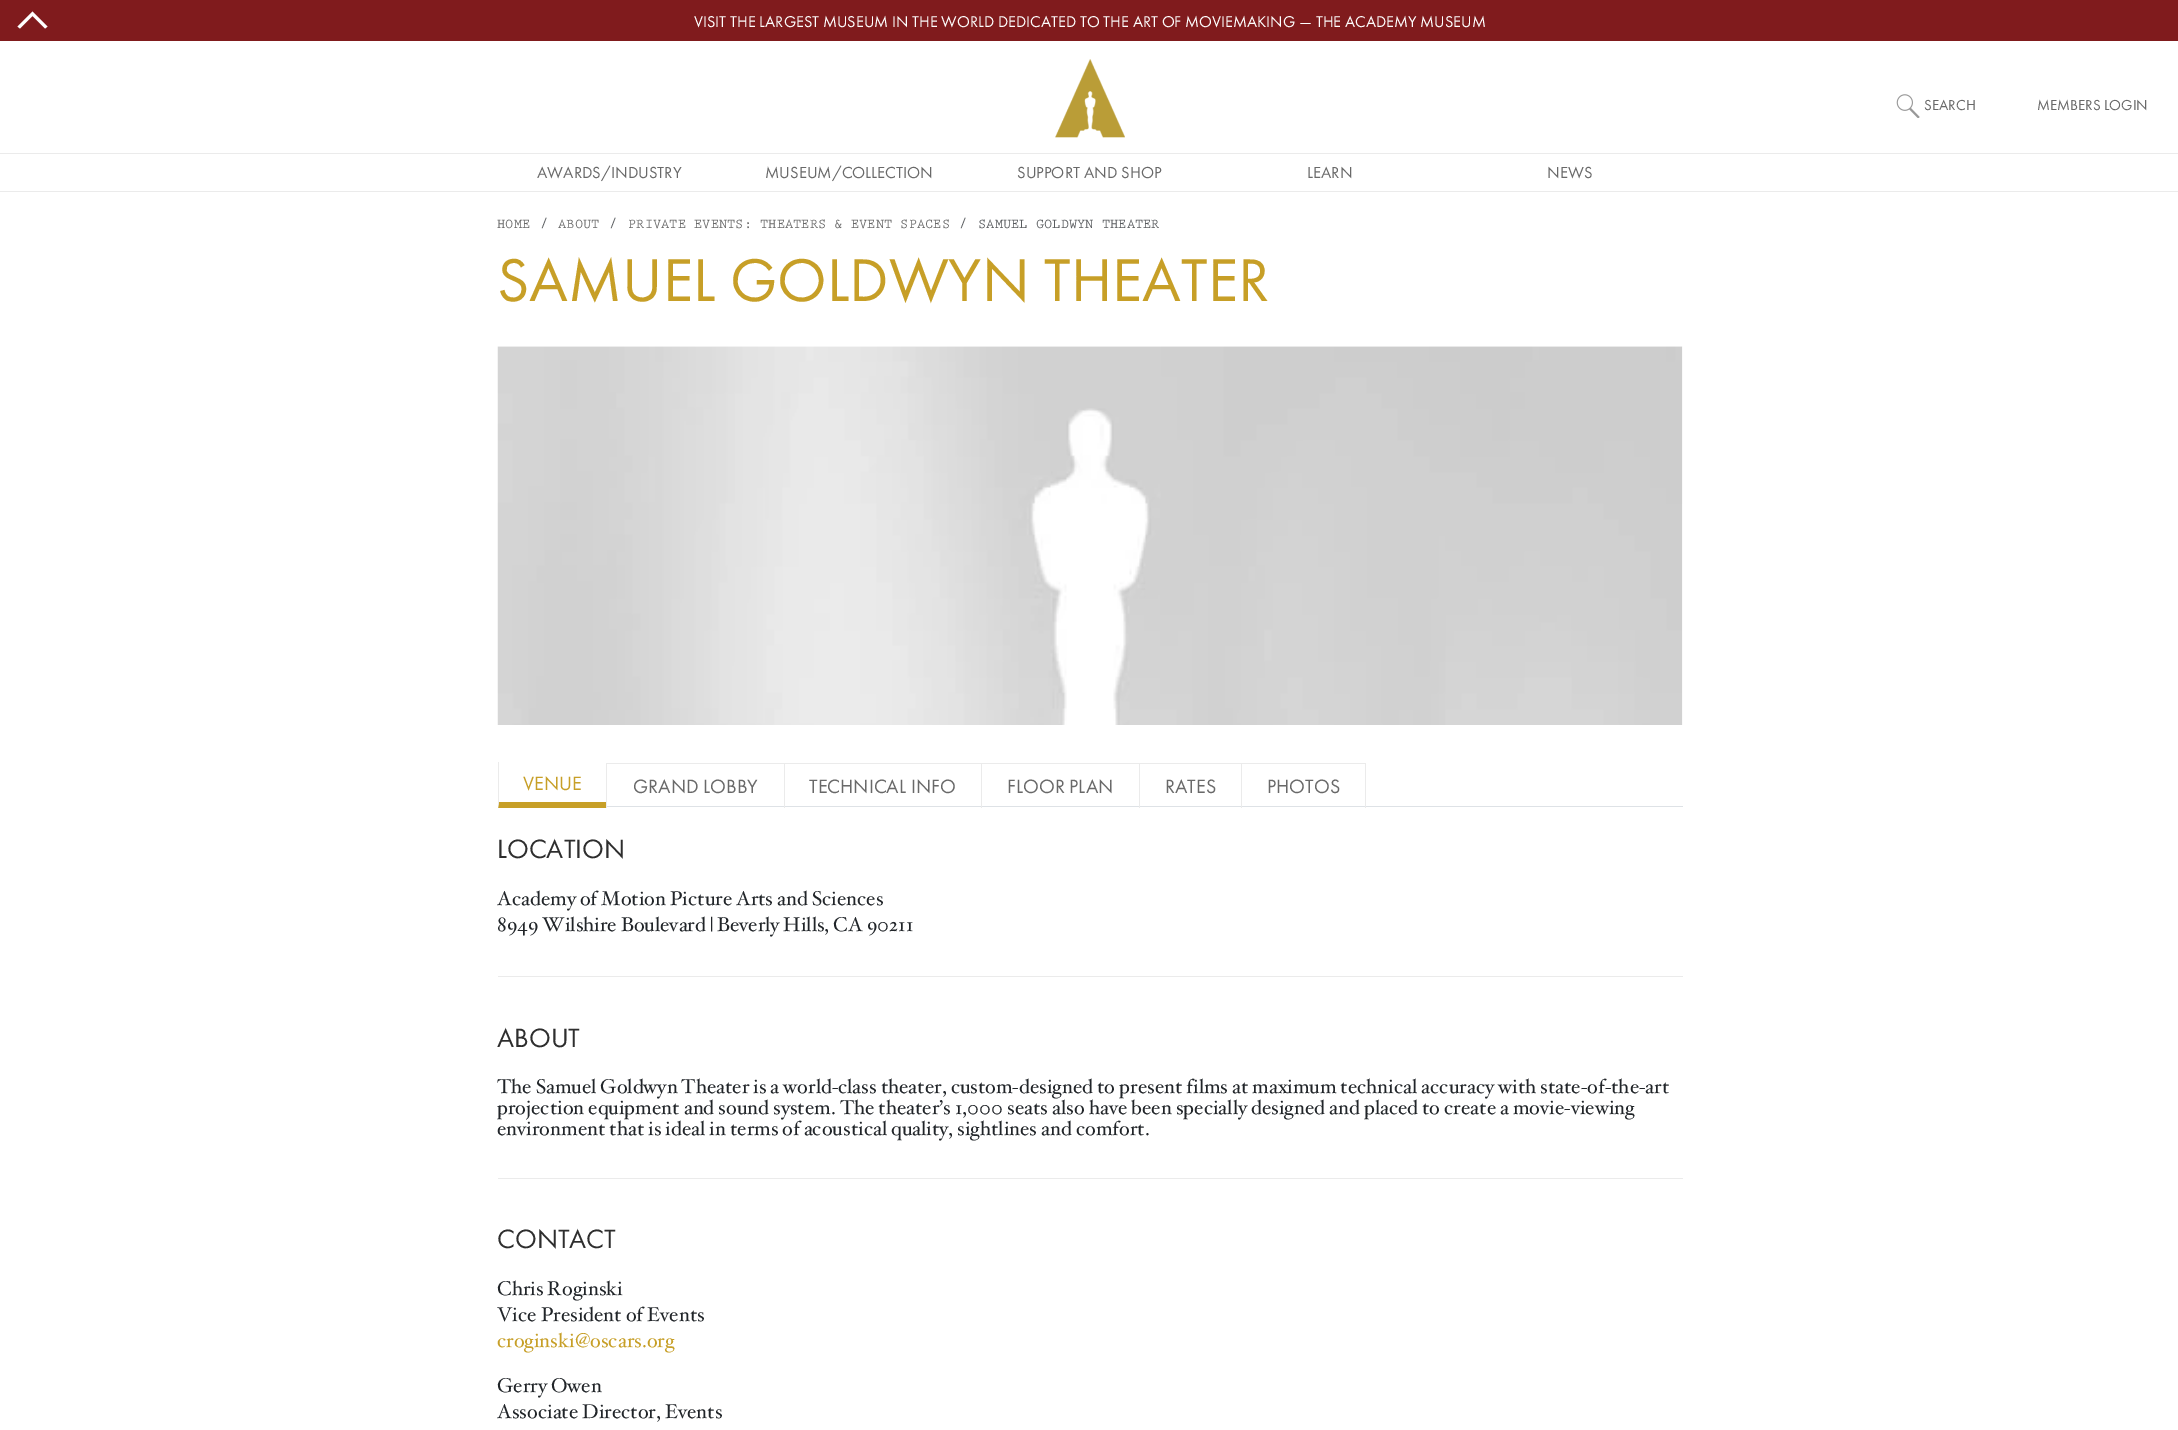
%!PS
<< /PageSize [2178 1430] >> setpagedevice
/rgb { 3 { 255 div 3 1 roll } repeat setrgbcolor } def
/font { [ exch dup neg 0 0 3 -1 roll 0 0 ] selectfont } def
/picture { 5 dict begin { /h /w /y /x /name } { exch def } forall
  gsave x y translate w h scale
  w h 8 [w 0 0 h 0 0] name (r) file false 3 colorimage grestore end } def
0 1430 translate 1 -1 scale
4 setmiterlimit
255 255 255 rgb
0 0 2178 1430 rectfill
128 27 29 rgb
0 0 2178 41 rectfill
255 255 255 rgb
17.5 26.5 moveto 20 28.5 lineto 32.5 16 lineto 45 28.5 lineto 47.5 26.5 lineto 32.5 11.5 lineto closepath fill
(img/1.rgb) 1055 59 70 79 picture
(img/2.rgb) 1896 94 24 24 picture
235 235 235 rgb
0 153 2178 1 rectfill
0 191 2178 1 rectfill
(img/3.rgb) 497 346 1186 379 picture
222 226 230 rgb
607 806 1076 1 rectfill
199 159 39 rgb
606 808 moveto 498 808 lineto 499 802 lineto 606 802 lineto closepath fill
235 235 235 rgb
498 808 moveto 498 762 lineto 499 762 lineto 499 802 lineto closepath fill
[
  [606 763 760 1 235 235 235]
  [606 763 1 45 235 235 235]
  [784 763 1 45 235 235 235]
  [981 763 1 45 235 235 235]
  [1139 763 1 45 235 235 235]
  [1365 763 1 45 235 235 235]
  [1241 763 1 45 235 235 235]
  [498 976 1185 1 235 235 235]
  [498 1178 1185 1 235 235 235]
] { aload pop rgb rectfill } forall
/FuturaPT-Regular 16.25 font
255 255 255 rgb
694 27 moveto (VISIT THE LARGEST MUSEUM IN THE WORLD DEDICATED TO THE ART OF MOVIEMAKING — THE ACADEMY MUSEUM) show
/FuturaPT-Regular 15 font
105 105 105 rgb
1924 110 moveto (SEARCH) show
2037 110 moveto (MEMBERS LOGIN) show
/FuturaPT-Regular 16.6 font
[
  [(AWARDS/INDUSTRY) 537 178]
  [(MUSEUM/COLLECTION) 765 178]
  [(SUPPORT AND SHOP) 1017 178]
  [(LEARN) 1307 178]
  [(NEWS) 1547 178]
] { aload pop moveto show } forall
/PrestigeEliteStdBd-Bold 13.75 font
497 228 moveto (HOME) show
89 92 95 rgb
540 228 moveto (/) show
105 105 105 rgb
558 228 moveto (ABOUT) show
89 92 95 rgb
609 228 moveto (/) show
105 105 105 rgb
628 228 moveto (PRIVATE EVENTS: THEATERS & EVENT SPACES) show
89 92 95 rgb
959 228 moveto (/) show
978 228 moveto (SAMUEL GOLDWYN THEATER) show
/FuturaPT-Regular 62.5 font
199 159 39 rgb
497 301 moveto (SAMUEL GOLDWYN THEATER) show
/FuturaPT-Regular 20 font
523 790 moveto (VENUE) show
105 105 105 rgb
[
  [(GRAND LOBBY) 633 793]
  [(TECHNICAL INFO) 809 793]
  [(FLOOR PLAN) 1007 793]
  [(RATES) 1165 793]
  [(PHOTOS) 1267 793]
] { aload pop moveto show } forall
/FuturaPT-Regular 27.5 font
46 46 46 rgb
497 858 moveto (LOCATION) show
/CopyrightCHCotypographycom-Light 20 font
33 37 41 rgb
497 905 moveto (Academy of Motion Picture Arts and Sciences) show
497 931 moveto (8949 Wilshire Boulevard | Beverly Hills, CA 90211) show
/FuturaPT-Regular 27.5 font
46 46 46 rgb
497 1047 moveto (ABOUT) show
/CopyrightCHCotypographycom-Light 20 font
33 37 41 rgb
[
  [(The Samuel Goldwyn Theater is a world-class theater, custom-designed to present films at maximum technical accuracy with state-of-the-art) 497 1093]
  [(projection equipment and sound system. The theater’s 1,000 seats also have been specially designed and placed to create a movie-viewing) 497 1114]
  [(environment that is ideal in terms of acoustical quality, sightlines and comfort.) 497 1135]
] { aload pop moveto show } forall
/FuturaPT-Regular 27.5 font
46 46 46 rgb
497 1248 moveto (CONTACT) show
/CopyrightCHCotypographycom-Light 20 font
33 37 41 rgb
497 1295 moveto (Chris Roginski) show
497 1321 moveto (Vice President of Events) show
199 159 39 rgb
497 1347 moveto (croginski@oscars.org) show
33 37 41 rgb
497 1392 moveto (Gerry Owen) show
497 1418 moveto (Associate Director, Events) show
showpage
